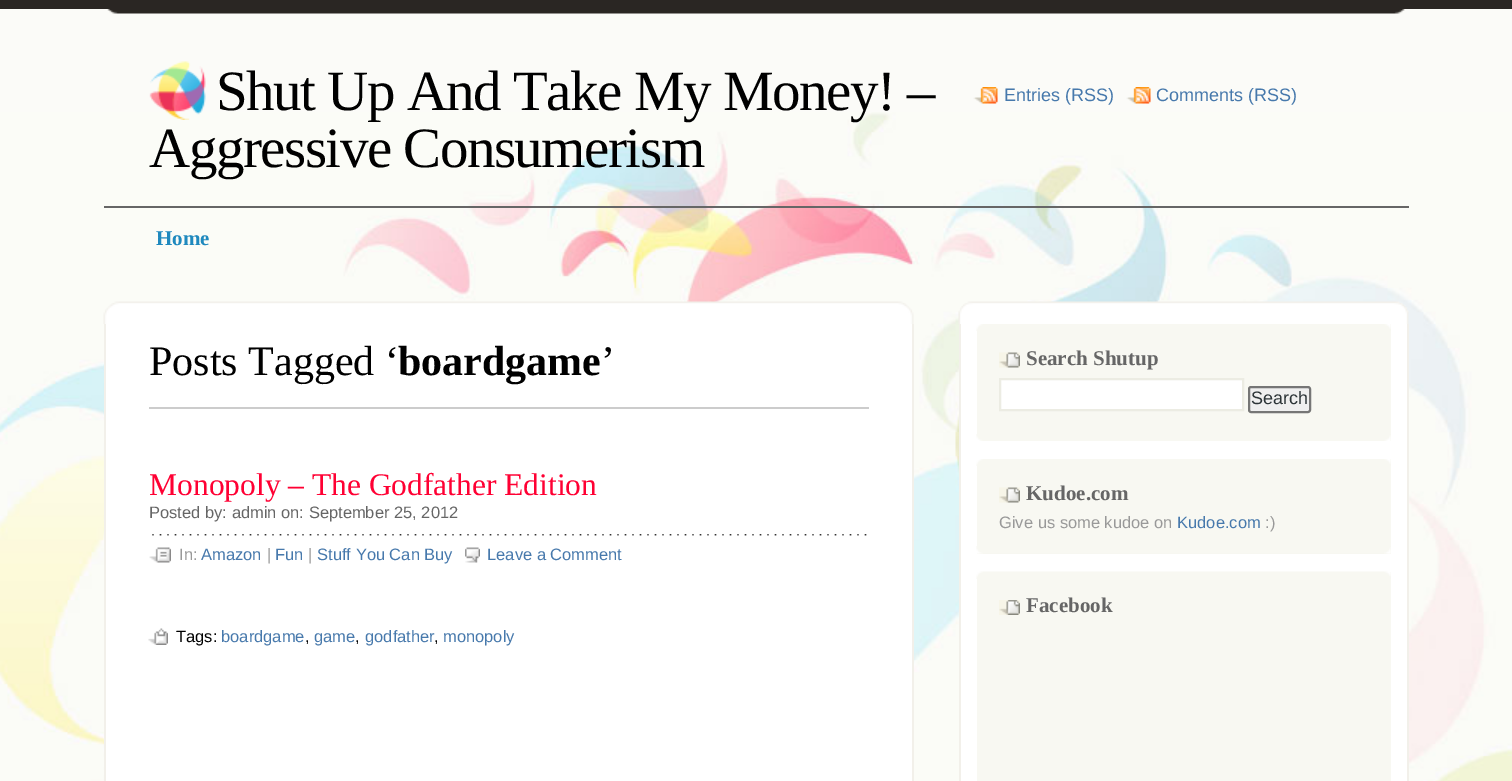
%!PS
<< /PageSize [1512 781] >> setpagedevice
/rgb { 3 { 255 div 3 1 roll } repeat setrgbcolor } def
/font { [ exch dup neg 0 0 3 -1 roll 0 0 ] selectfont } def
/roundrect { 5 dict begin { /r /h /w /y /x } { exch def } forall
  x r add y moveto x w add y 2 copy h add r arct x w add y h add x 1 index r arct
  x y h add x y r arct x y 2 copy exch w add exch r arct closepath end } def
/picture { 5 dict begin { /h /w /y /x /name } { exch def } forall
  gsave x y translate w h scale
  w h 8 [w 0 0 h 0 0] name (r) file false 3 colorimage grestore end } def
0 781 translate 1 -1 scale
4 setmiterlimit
251 251 248 rgb
0 0 1512 781 rectfill
(img/1.rgb) 0 112 1512 669 picture
42 38 35 rgb
0 0 1512 9 rectfill
(img/2.rgb) 107 9 1298 5 picture
102 102 102 rgb
104 206 1305 2 rectfill
(img/3.rgb) 149 61 57 59 picture
(img/4.rgb) 973 87 25 17 picture
(img/5.rgb) 1126 87 25 17 picture
(img/6.rgb) 103 301 811 23 picture
[
  [106 324 806 457 255 255 255]
  [912 324 2 457 242 240 234]
  [104 324 2 457 242 240 234]
  [149 407 720 2 204 204 204]
] { aload pop rgb rectfill } forall
(img/7.rgb) 152 534 715 2 picture
(img/8.rgb) 149 547 22 16 picture
(img/9.rgb) 465 547 15 16 picture
(img/10.rgb) 148 628 20 17 picture
(img/11.rgb) 958 301 451 23 picture
[
  [961 324 446 457 255 255 255]
  [1407 324 2 457 242 240 234]
  [959 324 2 457 242 240 234]
  [977 324 414 117 248 248 242]
] { aload pop rgb rectfill } forall
(img/12.rgb) 976 324 415 7 picture
(img/13.rgb) 976 434 415 7 picture
(img/14.rgb) 999 352 21 16 picture
255 255 255 rgb
1000 379 moveto 1243 379 lineto 1243 410 lineto 1000 410 lineto closepath gsave fill grestore
236 236 227 rgb
2 setlinewidth
stroke
239 239 239 rgb
1249 387 61 25 2 roundrect gsave fill grestore
118 118 118 rgb
stroke
248 248 242 rgb
977 459 414 95 rectfill
(img/12.rgb) 976 459 415 7 picture
(img/15.rgb) 976 546 415 8 picture
(img/14.rgb) 999 487 21 16 picture
977 572 414 209 rectfill
(img/16.rgb) 976 571 415 8 picture
(img/17.rgb) 999 600 21 15 picture
/LiberationSerif-Regular 57 font
0 0 0 rgb
216 110 moveto -1.5 0 (Shut Up And Take My Money! –) ashow
149 167 moveto -1.5 0 (Aggressive Consumerism) ashow
/LiberationSans-Regular 18 font
71 121 172 rgb
1004 101 moveto (Entries \(RSS\)) show
1156 101 moveto (Comments \(RSS\)) show
/LiberationSerif-Bold 21 font
31 137 190 rgb
156 245 moveto (Home) show
/LiberationSerif-Regular 42 font
0 0 0 rgb
149 375 moveto (Posts Tagged ‘) show
/LiberationSerif-Bold 42 font
398 375 moveto (boardgame) show
/LiberationSerif-Regular 42 font
601 375 moveto (’) show
/LiberationSerif-Regular 31.5 font
255 0 51 rgb
149 495 moveto (Monopoly – The Godfather Edition) show
/LiberationSans-Regular 16.5 font
102 102 102 rgb
149 518 moveto (Posted by: admin on: September 25, 2012) show
153 153 153 rgb
179 560 moveto (In:) show
71 121 172 rgb
201 560 moveto (Amazon) show
153 153 153 rgb
267 560 moveto (|) show
71 121 172 rgb
275 560 moveto (Fun) show
153 153 153 rgb
308 560 moveto (|) show
71 121 172 rgb
317 560 moveto (Stuff You Can Buy) show
487 560 moveto (Leave a Comment) show
0 0 0 rgb
176 642 moveto (Tags:) show
71 121 172 rgb
221 642 moveto (boardgame) show
0 0 0 rgb
305 642 moveto (,) show
71 121 172 rgb
314 642 moveto (game) show
0 0 0 rgb
355 642 moveto (,) show
71 121 172 rgb
365 642 moveto (godfather) show
0 0 0 rgb
434 642 moveto (,) show
71 121 172 rgb
443 642 moveto (monopoly) show
/LiberationSerif-Bold 21 font
102 102 102 rgb
1026 365 moveto (Search Shutup) show
/LiberationSans-Regular 18 font
45 53 56 rgb
1251 404 moveto (Search) show
/LiberationSerif-Bold 21 font
102 102 102 rgb
1026 500 moveto (Kudoe.com) show
/LiberationSans-Regular 16.5 font
153 153 153 rgb
999 528 moveto (Give us some kudoe on) show
71 121 172 rgb
1177 528 moveto (Kudoe.com) show
153 153 153 rgb
1265 528 moveto (:\)) show
/LiberationSerif-Bold 21 font
102 102 102 rgb
1026 612 moveto (Facebook) show
showpage
